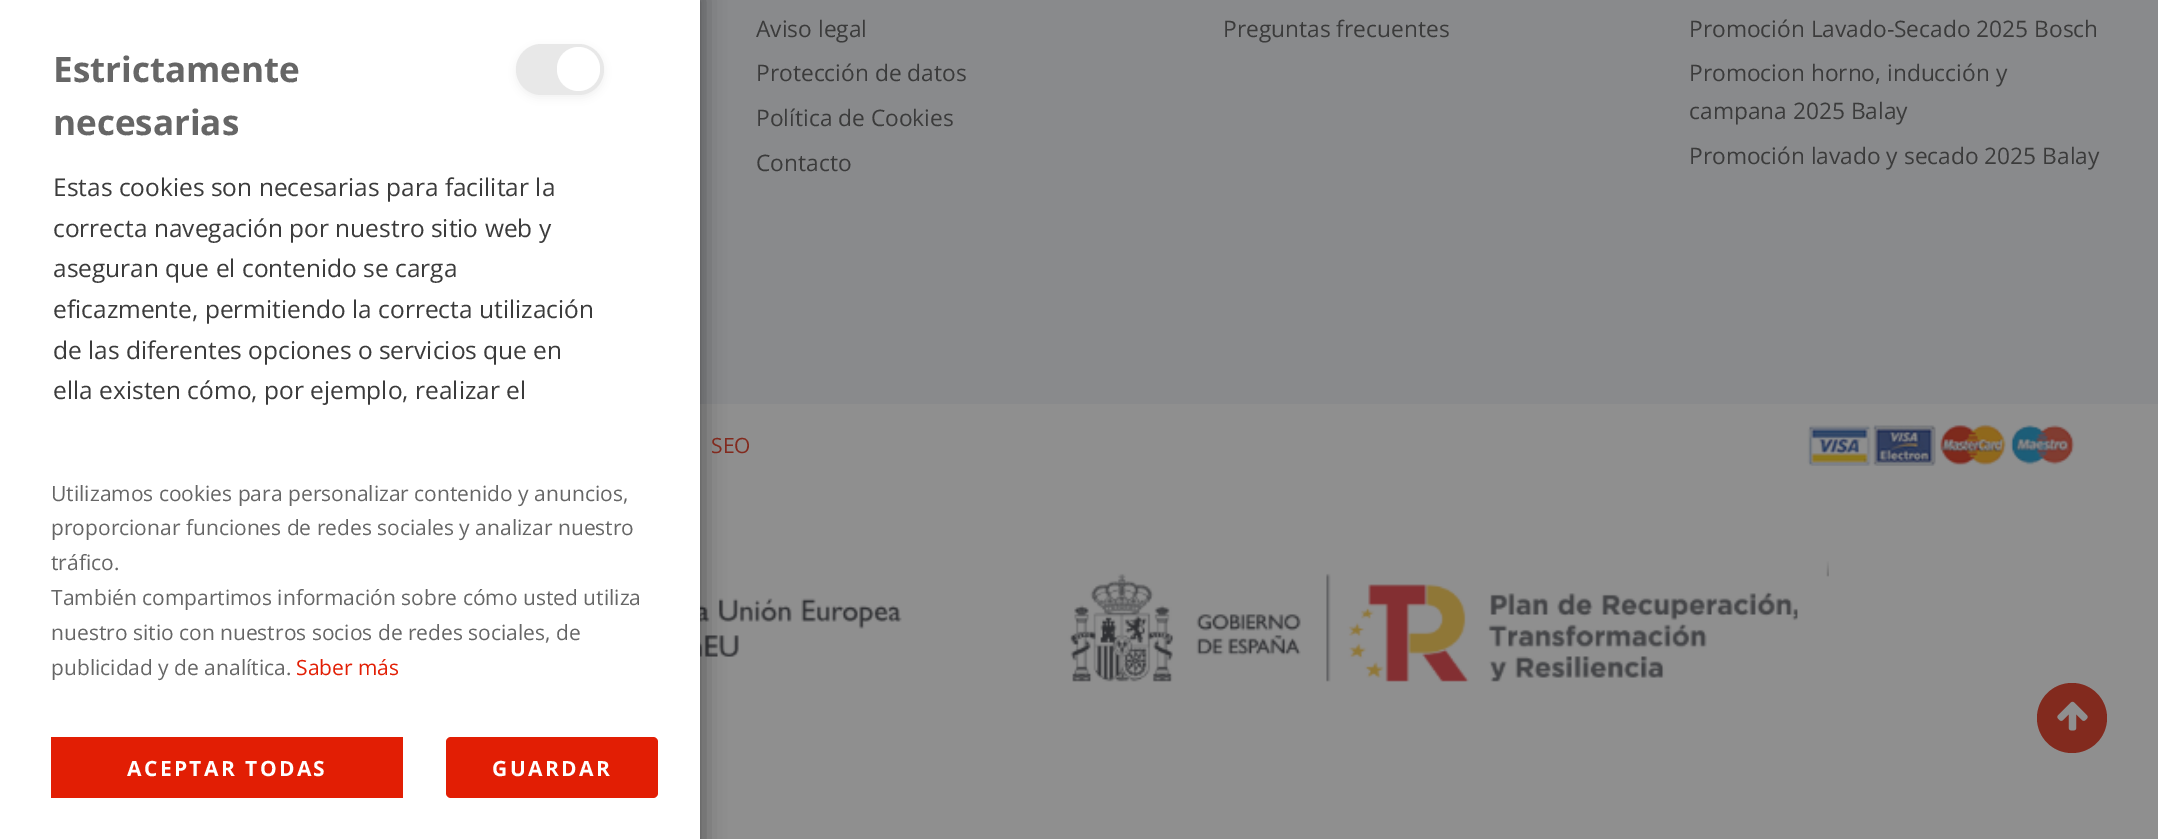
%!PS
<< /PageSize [2158 839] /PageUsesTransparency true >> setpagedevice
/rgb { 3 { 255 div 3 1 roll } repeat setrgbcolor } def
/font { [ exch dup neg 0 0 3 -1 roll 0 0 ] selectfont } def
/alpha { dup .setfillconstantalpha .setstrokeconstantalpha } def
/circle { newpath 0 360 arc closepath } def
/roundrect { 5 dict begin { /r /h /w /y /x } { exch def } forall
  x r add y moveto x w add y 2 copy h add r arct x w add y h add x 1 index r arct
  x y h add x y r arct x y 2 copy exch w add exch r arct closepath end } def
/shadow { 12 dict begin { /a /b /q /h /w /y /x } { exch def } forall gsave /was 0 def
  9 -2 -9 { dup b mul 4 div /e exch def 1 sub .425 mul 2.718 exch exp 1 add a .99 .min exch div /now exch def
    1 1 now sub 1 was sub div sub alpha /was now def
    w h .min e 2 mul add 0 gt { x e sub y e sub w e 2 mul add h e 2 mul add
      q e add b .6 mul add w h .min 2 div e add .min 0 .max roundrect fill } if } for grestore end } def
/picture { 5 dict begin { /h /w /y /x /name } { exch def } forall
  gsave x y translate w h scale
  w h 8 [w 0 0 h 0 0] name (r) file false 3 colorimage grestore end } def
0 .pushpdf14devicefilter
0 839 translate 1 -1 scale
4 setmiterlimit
143 143 143 rgb
0 0 2158 839 rectfill
137 138 140 rgb
704 0 1454 404 rectfill
134 135 138 rgb
700 0 4 404 rectfill
(img/3.rgb) 700 561 1129 121 picture
0 0 0 rgb
-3 -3 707 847 0 10.5 0.35 shadow
255 255 255 rgb
0 0 700 839 rectfill
0 0 0 rgb
516 47 88 51 25.5 4.5 0.05 shadow
232 232 232 rgb
516 44 88 51 25.5 roundrect fill
255 255 255 rgb
557 47 43 44 21.5 roundrect fill
226 30 4 rgb
51 737 352 61 rectfill
446 737 212 61 5 roundrect fill
(img/1.rgb) 1807 424 268 42 picture
130 42 30 rgb
2072 718 35 circle fill
(img/2.rgb) 2057 701 31 30 picture
/OpenSans-Bold 35 font
102 102 102 rgb
53 82 moveto (Estrictamente) show
53 135 moveto (necesarias) show
/OpenSans-Regular 24.5 font
59 59 59 rgb
[
  [(Estas cookies son necesarias para facilitar la) 53 196]
  [(correcta navegación por nuestro sitio web y) 53 237]
  [(aseguran que el contenido se carga) 53 277]
  [(eficazmente, permitiendo la correcta utilización) 53 318]
  [(de las diferentes opciones o servicios que en) 53 359]
  [(ella existen cómo, por ejemplo, realizar el) 53 399]
] { aload pop moveto show } forall
/OpenSans-Regular 21 font
102 102 102 rgb
[
  [(Utilizamos cookies para personalizar contenido y anuncios,) 51 501]
  [(proporcionar funciones de redes sociales y analizar nuestro) 51 535]
  [(tráfico.) 51 570]
  [(También compartimos información sobre cómo usted utiliza) 51 605]
  [(nuestro sitio con nuestros socios de redes sociales, de) 51 640]
  [(publicidad y de analítica.) 51 675]
] { aload pop moveto show } forall
226 30 4 rgb
296 675 moveto (Saber más) show
/OpenSans-Bold 21 font
255 255 255 rgb
127 776 moveto 2.4 0 (ACEPTAR TODAS) ashow
492 776 moveto 2.4 0 (GUARDAR) ashow
/OpenSans-Regular 22.75 font
59 59 59 rgb
[
  [(Aviso legal) 756 37]
  [(Protección de datos) 756 81]
  [(Política de Cookies) 756 126]
  [(Contacto) 756 171]
  [(Preguntas frecuentes) 1223 37]
  [(Promoción Lavado-Secado 2025 Bosch) 1689 37]
  [(Promocion horno, inducción y) 1689 81]
  [(campana 2025 Balay) 1689 119]
  [(Promoción lavado y secado 2025 Balay) 1689 164]
] { aload pop moveto show } forall
/OpenSans-Regular 21 font
130 42 30 rgb
711 453 moveto (SEO) show
.poppdf14devicefilter showpage
